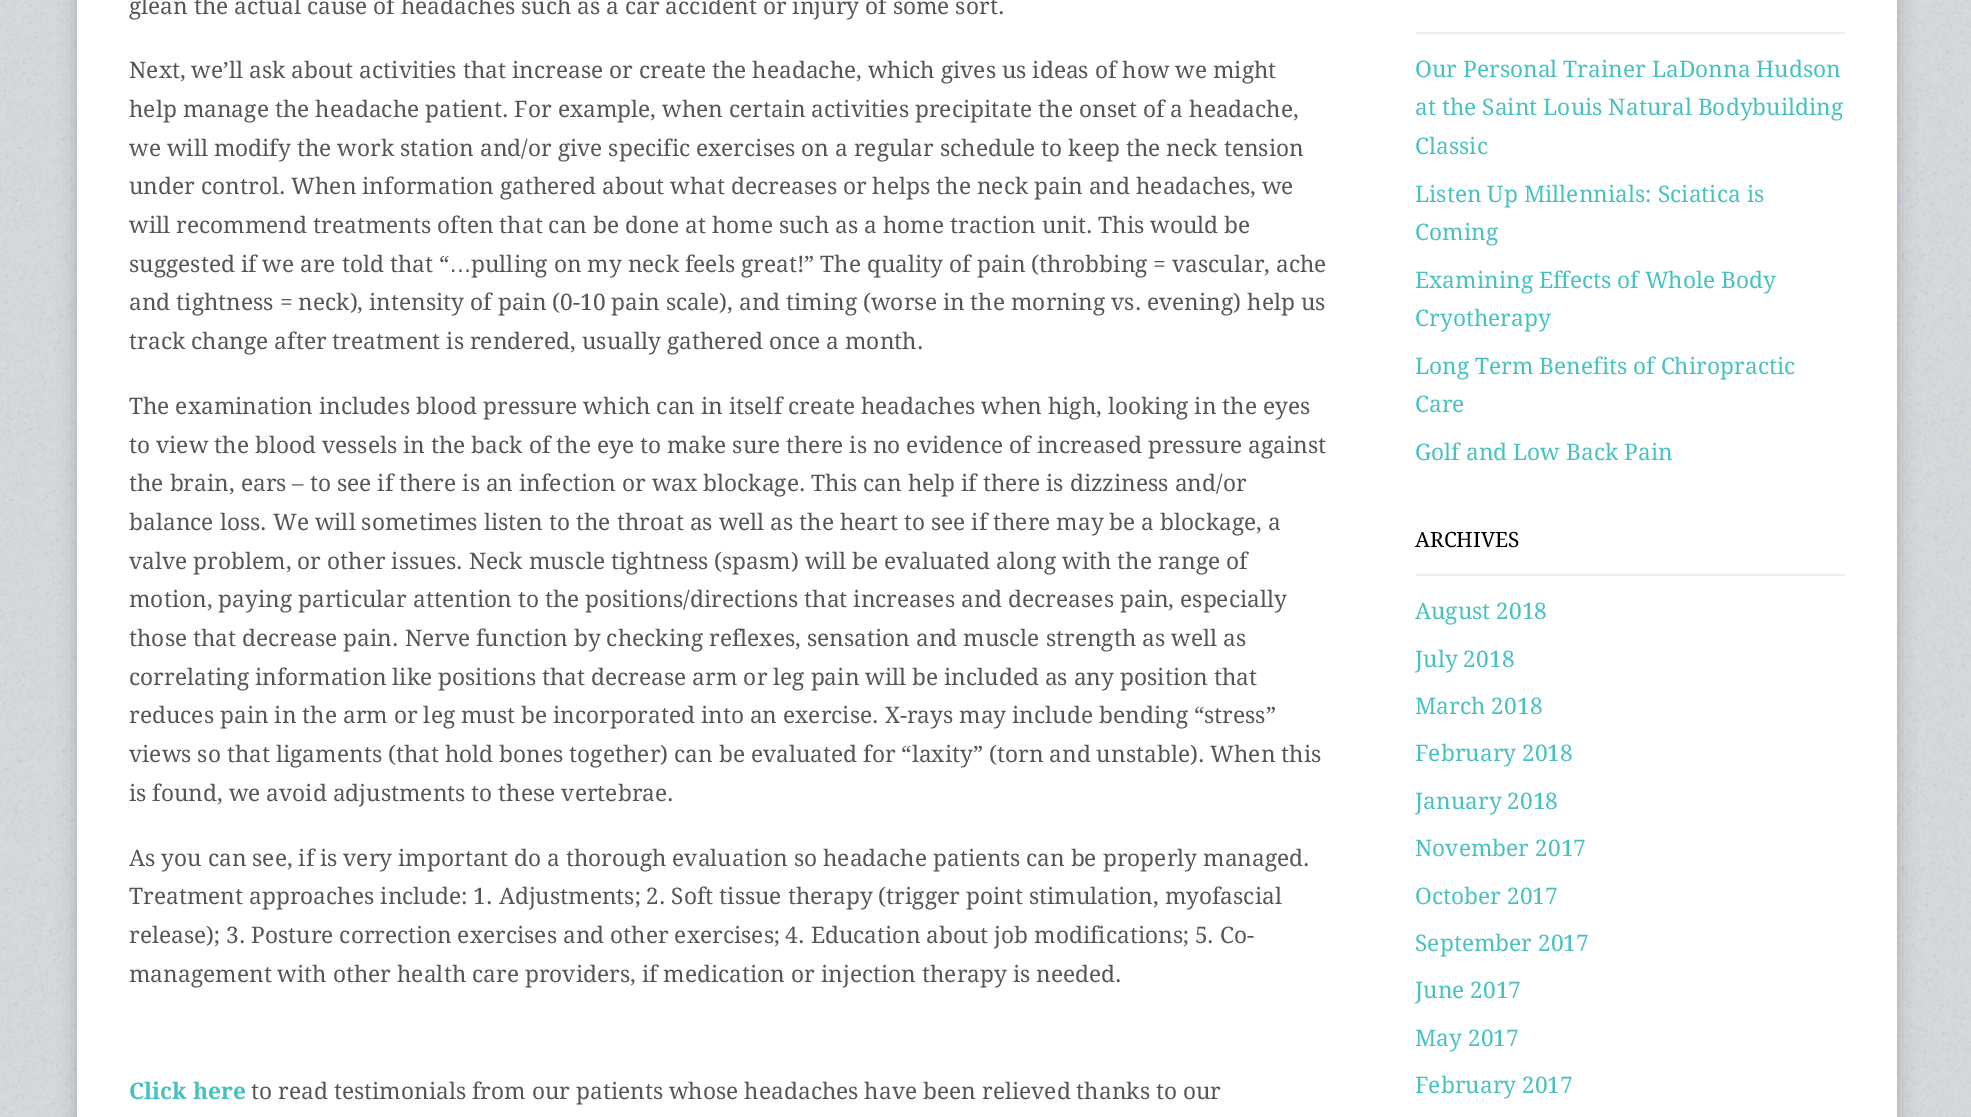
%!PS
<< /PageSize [1971 1117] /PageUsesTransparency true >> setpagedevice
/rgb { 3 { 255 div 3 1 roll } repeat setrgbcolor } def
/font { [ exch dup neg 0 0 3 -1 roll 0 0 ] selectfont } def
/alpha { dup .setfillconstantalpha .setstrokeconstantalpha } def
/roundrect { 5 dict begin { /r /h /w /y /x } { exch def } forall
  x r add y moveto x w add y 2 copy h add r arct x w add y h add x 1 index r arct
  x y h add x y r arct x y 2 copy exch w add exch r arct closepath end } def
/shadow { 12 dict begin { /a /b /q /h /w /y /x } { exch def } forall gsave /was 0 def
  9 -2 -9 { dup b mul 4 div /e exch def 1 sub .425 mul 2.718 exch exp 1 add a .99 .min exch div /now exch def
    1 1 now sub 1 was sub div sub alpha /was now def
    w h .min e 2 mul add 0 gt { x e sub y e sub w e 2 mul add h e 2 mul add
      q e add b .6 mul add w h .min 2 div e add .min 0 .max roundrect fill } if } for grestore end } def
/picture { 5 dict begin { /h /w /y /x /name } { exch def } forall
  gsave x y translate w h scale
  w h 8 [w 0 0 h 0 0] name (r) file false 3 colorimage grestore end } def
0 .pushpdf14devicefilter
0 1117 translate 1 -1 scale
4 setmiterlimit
255 255 255 rgb
0 0 1971 1117 rectfill
(img/1.rgb) 0 0 1971 1117 picture
0 0 0 rgb
77 -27 1820 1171 0 9 0.2 shadow
[
  [77 0 1820 1117 255 255 255]
  [1416 32 429 2 238 238 238]
  [1416 574 429 2 238 238 238]
] { aload pop rgb rectfill } forall
/DroidSerif-Regular 22.75 font
85 85 85 rgb
[
  [(glean the actual cause of headaches such as a car accident or injury of some sort.) 129 14]
  [(Next, we’ll ask about activities that increase or create the headache, which gives us ideas of how we might) 129 78]
  [(help manage the headache patient. For example, when certain activities precipitate the onset of a headache,) 129 117]
  [(we will modify the work station and/or give specific exercises on a regular schedule to keep the neck tension) 129 156]
  [(under control. When information gathered about what decreases or helps the neck pain and headaches, we) 129 194]
  [(will recommend treatments often that can be done at home such as a home traction unit. This would be) 129 233]
  [(suggested if we are told that “) 129 272]
] { aload pop moveto show } forall
/LiberationSans-Regular 22.75 font
449 272 moveto (…) show
/DroidSerif-Regular 22.75 font
[
  [(pulling on my neck feels great!” The quality of pain \(throbbing = vascular, ache) 471 272]
  [(and tightness = neck\), intensity of pain \(0-10 pain scale\), and timing \(worse in the morning vs. evening\) help us) 129 310]
  [(track change after treatment is rendered, usually gathered once a month.) 129 349]
  [(The examination includes blood pressure which can in itself create headaches when high, looking in the eyes) 129 414]
  [(to view the blood vessels in the back of the eye to make sure there is no evidence of increased pressure against) 129 453]
  [(the brain, ears – to see if there is an infection or wax blockage. This can help if there is dizziness and/or) 129 491]
  [(balance loss. We will sometimes listen to the throat as well as the heart to see if there may be a blockage, a) 129 530]
  [(valve problem, or other issues. Neck muscle tightness \(spasm\) will be evaluated along with the range of) 129 569]
  [(motion, paying particular attention to the positions/directions that increases and decreases pain, especially) 129 607]
  [(those that decrease pain. Nerve function by checking reflexes, sensation and muscle strength as well as) 129 646]
  [(correlating information like positions that decrease arm or leg pain will be included as any position that) 129 685]
  [(reduces pain in the arm or leg must be incorporated into an exercise. X-rays may include bending “stress”) 129 723]
  [(views so that ligaments \(that hold bones together\) can be evaluated for “laxity” \(torn and unstable\). When this) 129 762]
  [(is found, we avoid adjustments to these vertebrae.) 129 801]
  [(As you can see, if is very important do a thorough evaluation so headache patients can be properly managed.) 129 866]
  [(Treatment approaches include: 1. Adjustments; 2. Soft tissue therapy \(trigger point stimulation, myofascial) 129 904]
  [(release\); 3. Posture correction exercises and other exercises; 4. Education about job modifications; 5. Co-) 129 943]
  [(management with other health care providers, if medication or injection therapy is needed.) 129 982]
] { aload pop moveto show } forall
/DroidSerif-Bold 22.75 font
71 192 192 rgb
129 1099 moveto (Click here) show
/DroidSerif-Regular 22.75 font
85 85 85 rgb
251 1099 moveto (to read testimonials from our patients whose headaches have been relieved thanks to our) show
71 192 192 rgb
[
  [(Our Personal Trainer LaDonna Hudson) 1415 77]
  [(at the Saint Louis Natural Bodybuilding) 1415 115]
  [(Classic) 1415 154]
  [(Listen Up Millennials: Sciatica is) 1415 202]
  [(Coming) 1415 240]
  [(Examining Effects of Whole Body) 1415 288]
  [(Cryotherapy) 1415 326]
  [(Long Term Benefits of Chiropractic) 1415 374]
  [(Care) 1415 412]
  [(Golf and Low Back Pain) 1415 460]
] { aload pop moveto show } forall
/DroidSerif-Regular 21 font
0 0 0 rgb
1415 547 moveto (ARCHIVES) show
/DroidSerif-Regular 22.75 font
71 192 192 rgb
[
  [(August 2018) 1415 619]
  [(July 2018) 1415 667]
  [(March 2018) 1415 714]
  [(February 2018) 1415 761]
  [(January 2018) 1415 809]
  [(November 2017) 1415 856]
  [(October 2017) 1415 904]
  [(September 2017) 1415 951]
  [(June 2017) 1415 998]
  [(May 2017) 1415 1046]
  [(February 2017) 1415 1093]
] { aload pop moveto show } forall
.poppdf14devicefilter showpage
